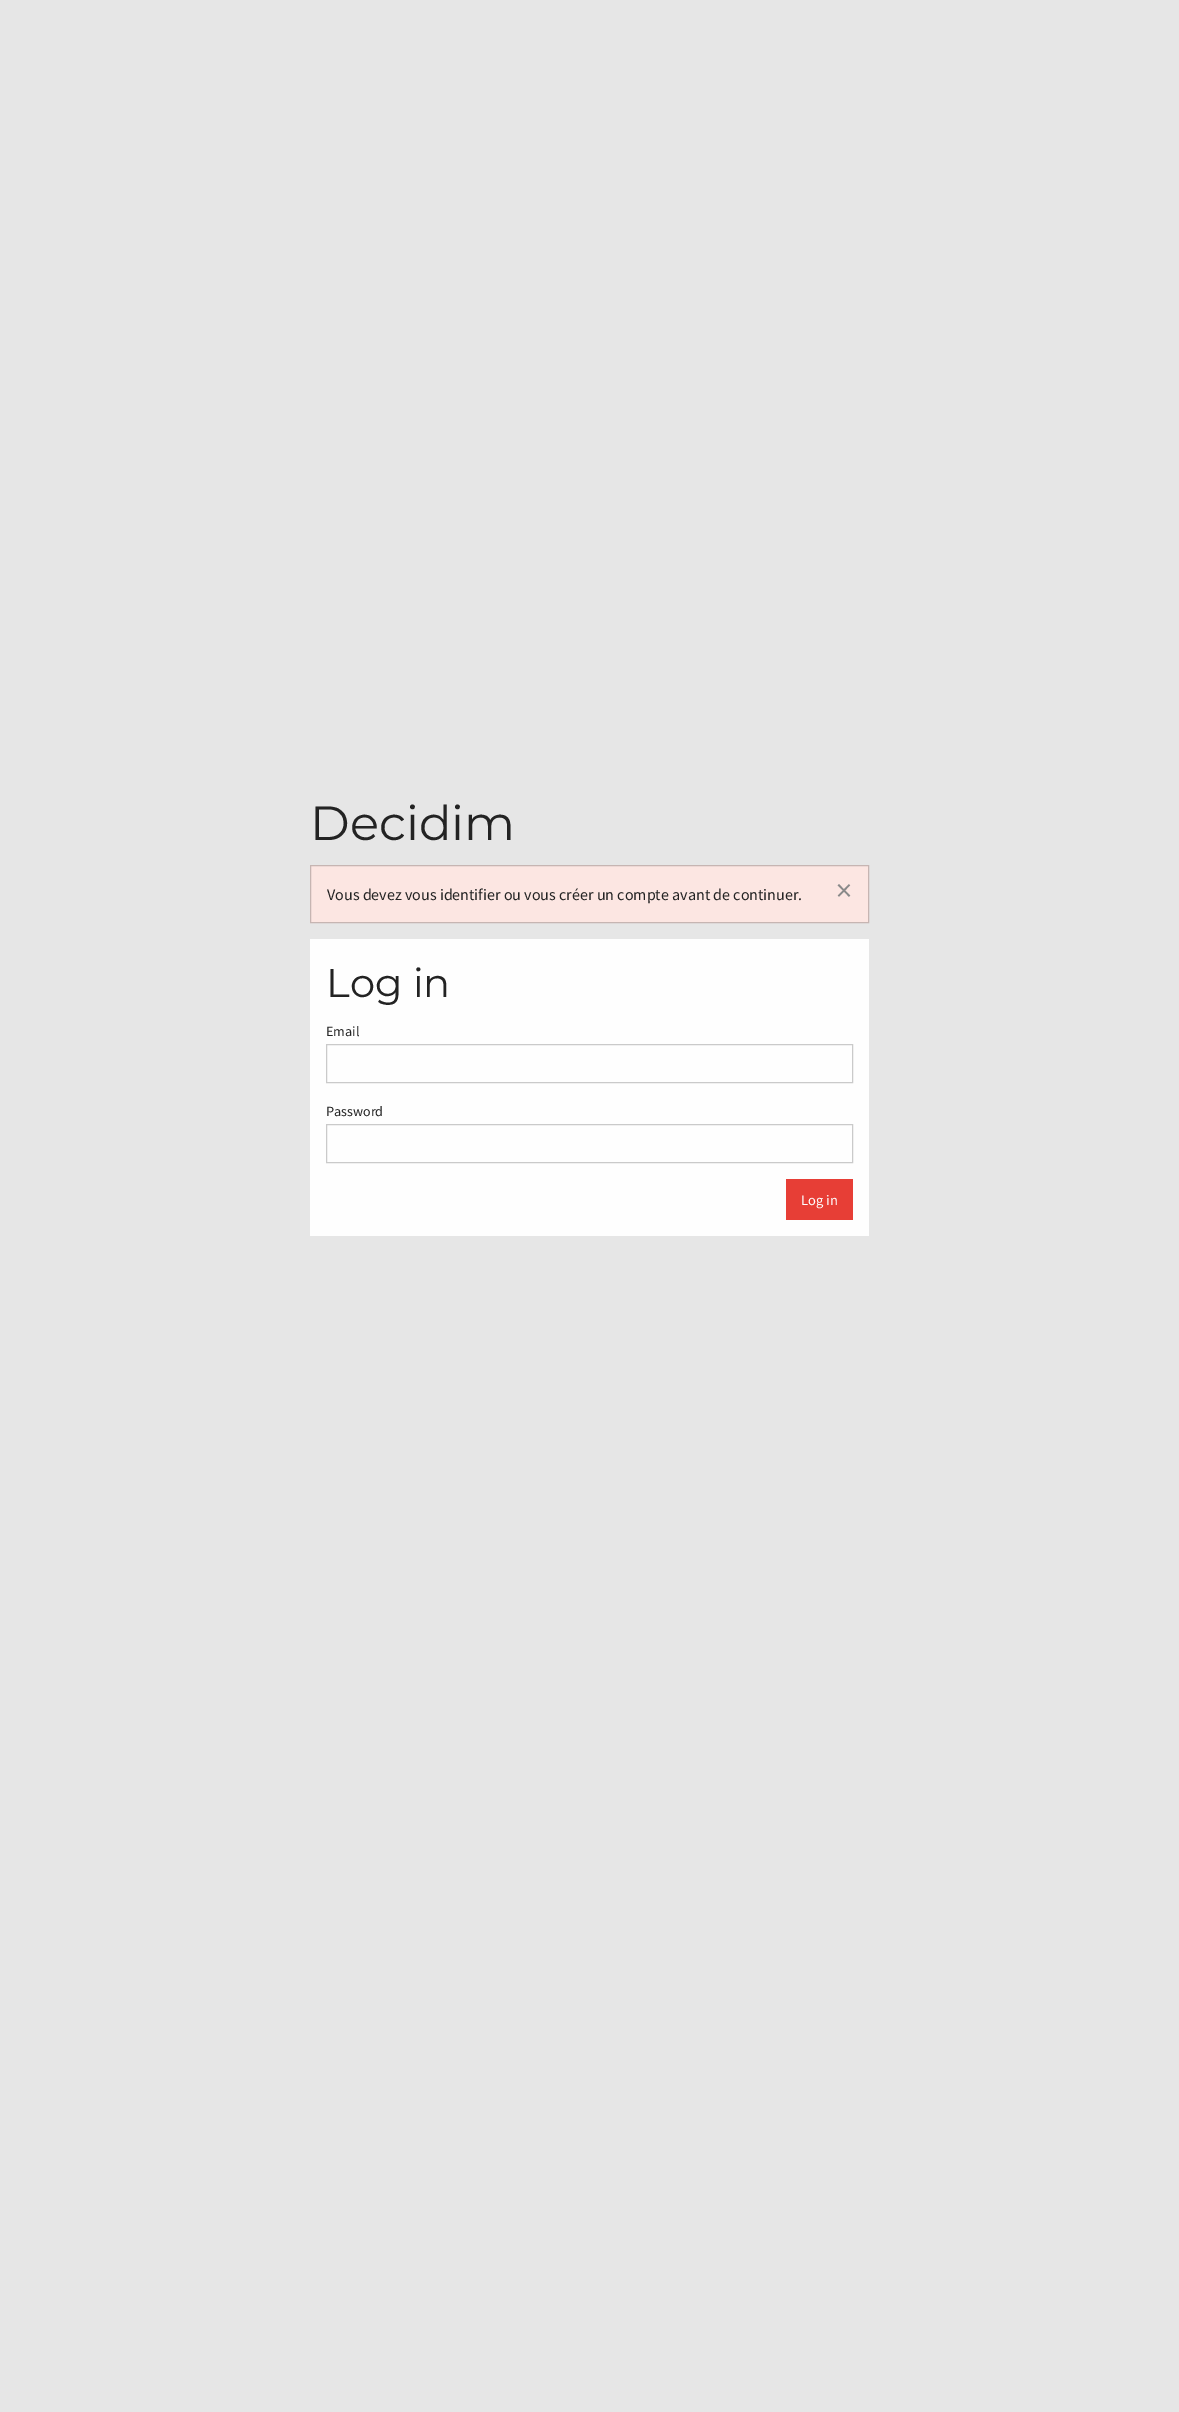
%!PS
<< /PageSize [1179 2412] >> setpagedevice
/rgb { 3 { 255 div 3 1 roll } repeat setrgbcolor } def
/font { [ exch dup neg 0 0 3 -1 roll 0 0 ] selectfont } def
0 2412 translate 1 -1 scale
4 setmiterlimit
230 230 230 rgb
0 0 1179 2412 rectfill
252 230 226 rgb
310.5 865.5 moveto 868.5 865.5 lineto 868.5 922.5 lineto 310.5 922.5 lineto closepath gsave fill grestore
198 181 178 rgb
stroke
254 254 254 rgb
310 939 559 297 rectfill
202 202 202 rgb
326.5 1044.5 526 38 rectstroke
326.5 1124.5 526 38 rectstroke
231 62 54 rgb
786 1179 67 41 rectfill
/Montserrat-Regular 48 font
35 35 35 rgb
310 840 moveto (Decidim) show
/SourceSansPro-Regular 16 font
327 900 moveto (Vous devez vous identifier ou vous créer un compte avant de continuer.) show
/SourceSansPro-Regular 32 font
138 138 138 rgb
836 901 moveto (×) show
/Montserrat-Regular 40 font
35 35 35 rgb
326 997 moveto (Log in) show
/SourceSansPro-Regular 14 font
326 1036 moveto (Email) show
326 1116 moveto (Password) show
/SourceSansPro-Regular 14.5 font
254 254 254 rgb
801 1205 moveto (Log in) show
showpage
